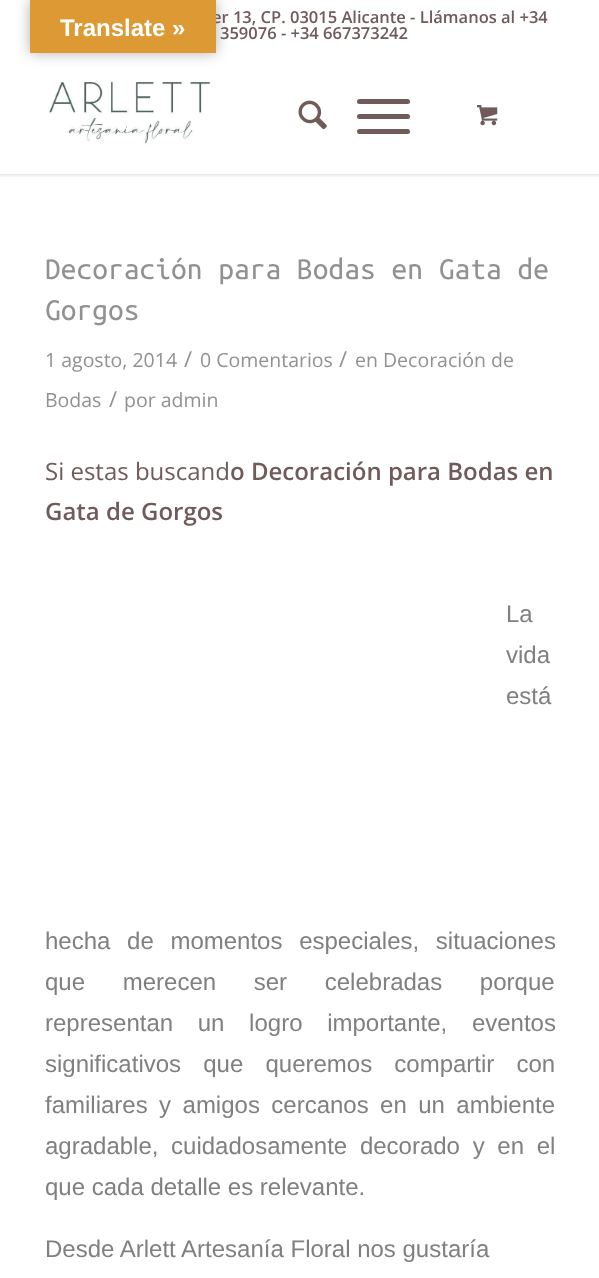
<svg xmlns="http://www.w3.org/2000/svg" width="599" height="1278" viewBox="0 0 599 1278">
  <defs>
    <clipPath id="clip1"><path d="M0 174h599v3H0z"/></clipPath>
  </defs>
  <rect width="100%" height="100%" fill="#fff"/>
  <g clip-path="url(#clip1)">
    <path d="M-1 -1h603v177H-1z" fill="#0000001a" filter="blur(1.5px)"/>
  </g>
  <image x="48" y="81" width="164" height="64" href="img/1.png"/>
  <image x="298" y="100" width="29" height="30" href="img/2.png"/>
  <rect x="357" y="114" width="53" height="5" rx="2.5" fill="#705a5a"/>
  <rect x="357" y="99" width="53" height="5" rx="2.5" fill="#705a5a"/>
  <rect x="357" y="129" width="53" height="5" rx="2.5" fill="#705a5a"/>
  <image x="477" y="105" width="21" height="21" href="img/3.png"/>
  <path d="M30 0h186v53H30z" fill="#0000004d" filter="blur(7px)"/>
  <g font-family="Open Sans" font-size="16.5" font-weight="600" fill="#705a5a">
    <text x="212" y="23">er 13, CP. 03015 Alicante - Llámanos al +34</text>
    <text x="220" y="39">359076 - +34 667373242</text>
  </g>
  <g font-family="Ubuntu Mono" font-size="31.5" fill="#919191">
    <text x="45" y="279">Decoración para Bodas en Gata de</text>
    <text x="45" y="320">Gorgos</text>
  </g>
  <text x="45" y="367" font-family="Open Sans" font-size="19.5" fill="#919191">1 agosto, 2014</text>
  <text x="184" y="367" font-family="Open Sans" font-size="22" fill="#919191">/</text>
  <text x="200" y="367" font-family="Open Sans" font-size="19.5" fill="#919191">0 Comentarios</text>
  <text x="339" y="367" font-family="Open Sans" font-size="22" fill="#919191">/</text>
  <g font-family="Open Sans" font-size="19.5" fill="#919191">
    <text x="355" y="367">en Decoración de</text>
    <text x="45" y="407">Bodas</text>
  </g>
  <text x="109" y="407" font-family="Open Sans" font-size="22" fill="#919191">/</text>
  <text x="124" y="407" font-family="Open Sans" font-size="19.5" fill="#919191">por admin</text>
  <text x="45" y="480" font-family="Open Sans" font-size="24" fill="#705a5a">Si estas buscand</text>
  <g font-family="Open Sans" font-size="24" font-weight="600" fill="#705a5a">
    <text x="230" y="480">o Decoración para Bodas en</text>
    <text x="45" y="520">Gata de Gorgos</text>
  </g>
  <g font-family="Liberation Sans" font-size="24" fill="#808080">
    <text x="506" y="622">La</text>
    <text x="506" y="663">vida</text>
    <text x="506" y="704">está</text>
    <text x="45" y="949" word-spacing="10">hecha de momentos especiales, situaciones</text>
    <text x="45" y="990" word-spacing="31">que merecen ser celebradas porque</text>
    <text x="45" y="1031" word-spacing="18">representan un logro importante, eventos</text>
    <text x="45" y="1072" word-spacing="15.5">significativos que queremos compartir con</text>
    <text x="45" y="1113" word-spacing="4.75">familiares y amigos cercanos en un ambiente</text>
    <text x="45" y="1154" word-spacing="6">agradable, cuidadosamente decorado y en el</text>
    <text x="45" y="1195">que cada detalle es relevante.</text>
    <text x="45" y="1257">Desde Arlett Artesanía Floral nos gustaría</text>
  </g>
  <path d="M30 0h186v53H30z" fill="#d93"/>
  <text x="60" y="36" font-family="Liberation Sans" font-size="24" font-weight="bold" fill="#fff">Translate »</text>
</svg>
